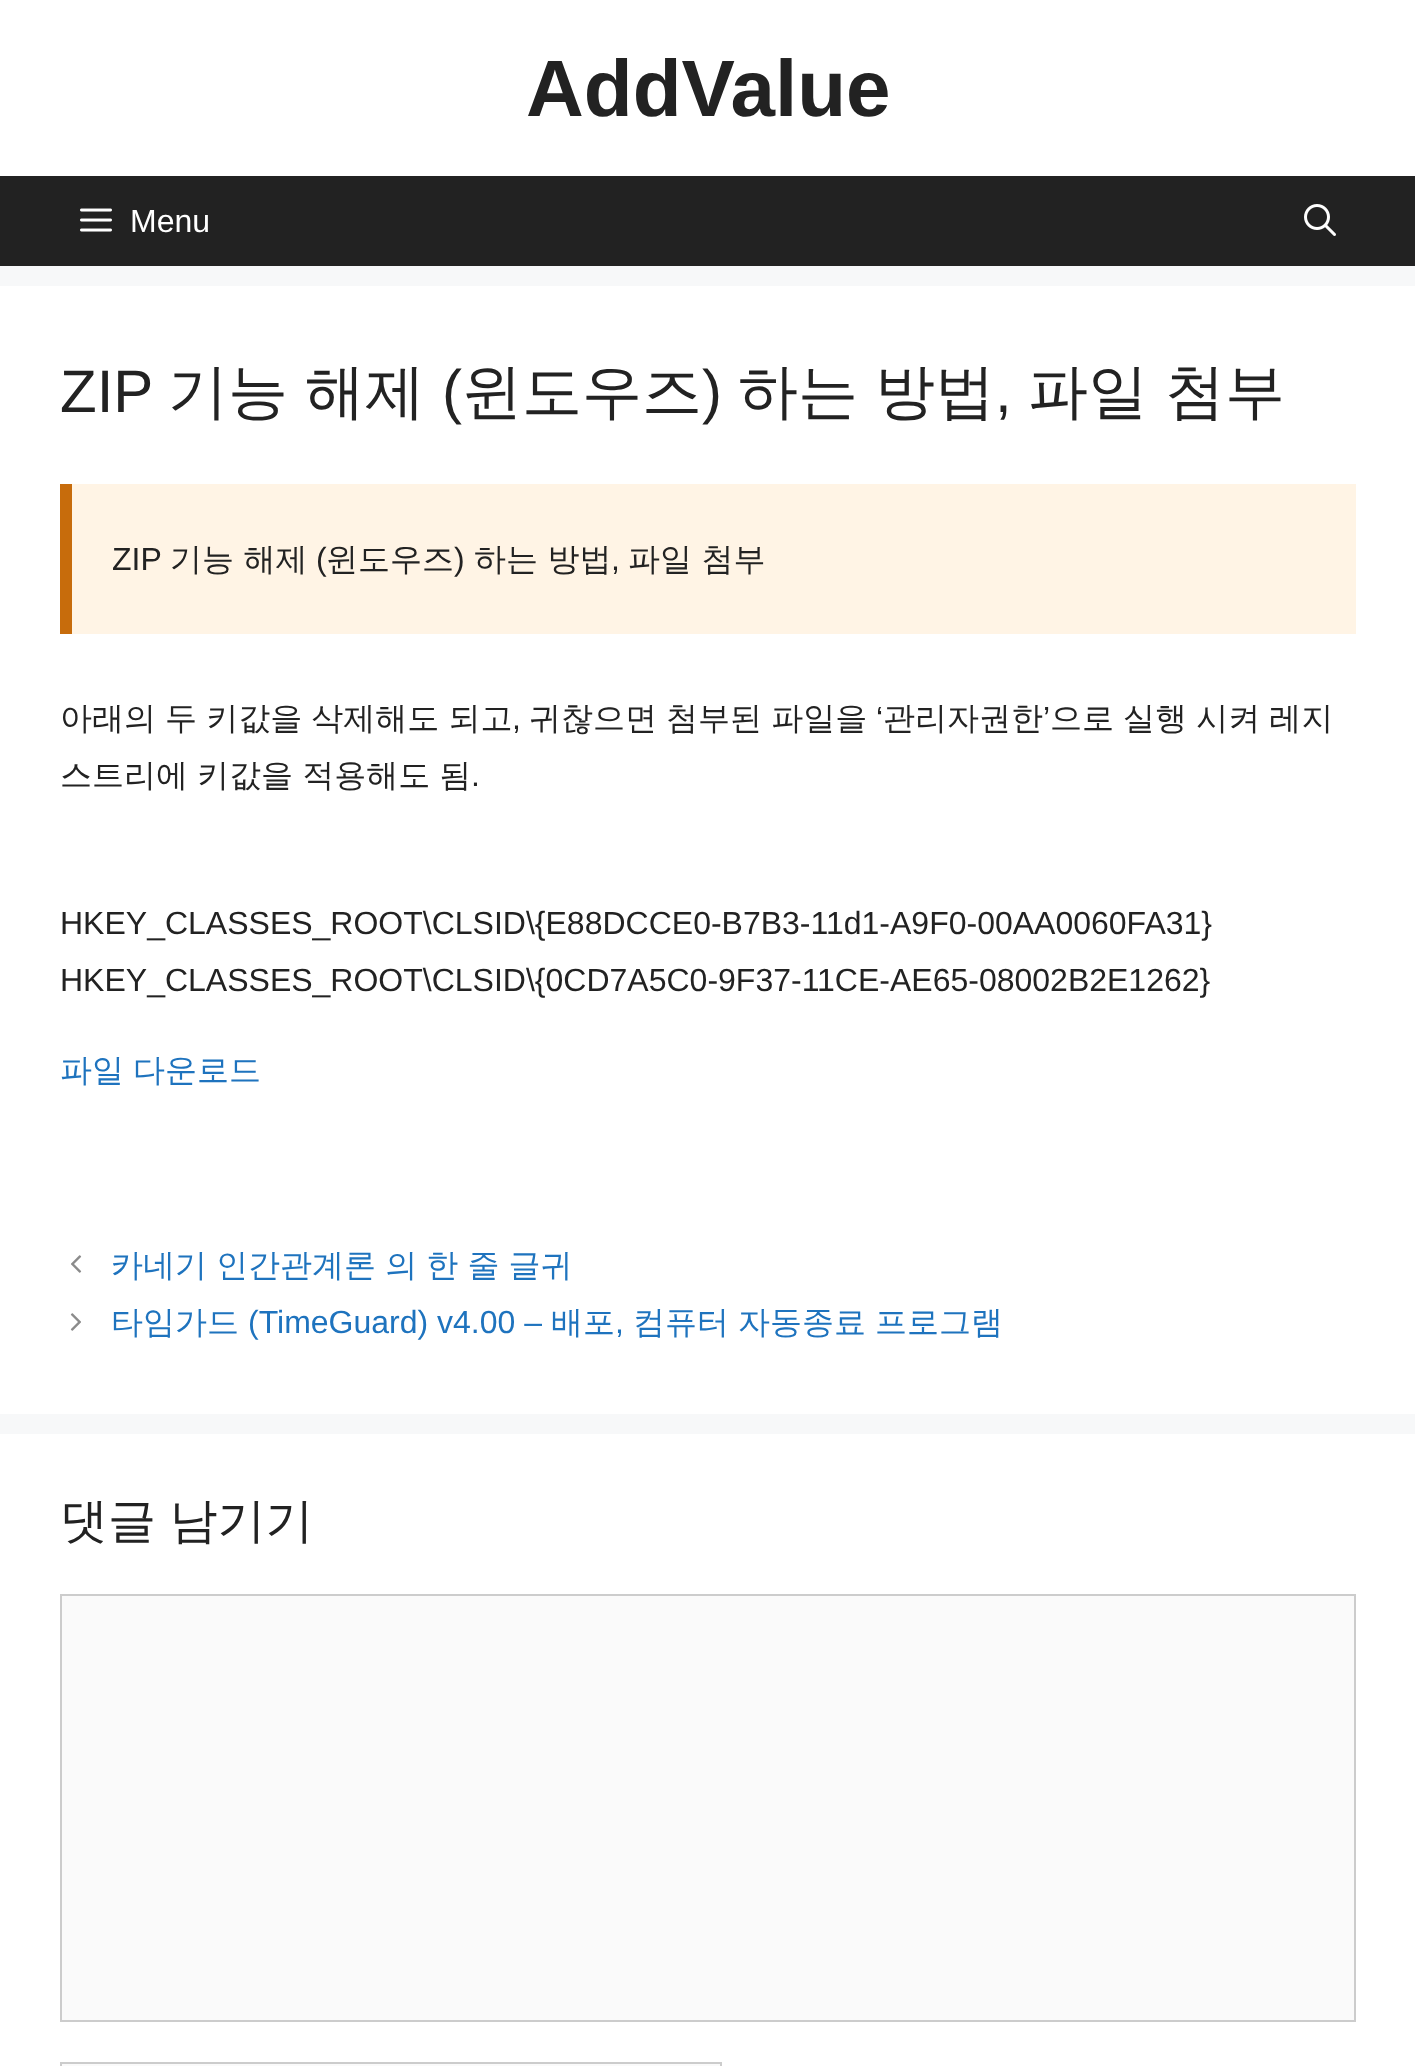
<svg xmlns="http://www.w3.org/2000/svg" width="1415" height="2066" viewBox="0 0 1415 2066">
  <rect width="100%" height="100%" fill="#f7f8f9"/>
  <path d="M0 0h1415v176H0z" fill="#fff"/>
  <path d="M0 176h1415v90H0z" fill="#222"/>
  <image x="80" y="208" width="32" height="24" href="img/1.png"/>
  <image x="1304" y="204" width="32" height="32" href="img/2.png"/>
  <path d="M0 286h1415v1128H0z" fill="#fff"/>
  <path d="M72 484h1284v150H72z" fill="#fff4e5"/>
  <path d="M60 484h12v150H60z" fill="#c76c0c"/>
  <image x="71" y="1255" width="11" height="18" href="img/3.png"/>
  <image x="70" y="1313" width="11" height="18" href="img/4.png"/>
  <path d="M0 1434h1415v632H0z" fill="#fff"/>
  <path d="M61 1595h1294v426H61z" fill="#fafafa" stroke="#ccc" stroke-width="2"/>
  <path d="M61 2063h660v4H61z" fill="#fafafa" stroke="#ccc" stroke-width="2"/>
  <text x="526" y="116" font-family="Liberation Sans" font-size="80" font-weight="bold" fill="#222">AddValue</text>
  <text x="130" y="232" font-family="Liberation Sans" font-size="32" fill="#fff">Menu</text>
  <text x="60" y="412" font-family="Liberation Sans" font-size="60" fill="#222">ZIP</text>
  <text x="168" y="412" word-spacing="-1" font-family="WenQuanYi Zen Hei" font-size="60" font-weight="500" fill="#222">기능 해제</text>
  <text x="442" y="412" font-family="Liberation Sans" font-size="60" fill="#222">(</text>
  <text x="462" y="412" font-family="WenQuanYi Zen Hei" font-size="60" font-weight="500" fill="#222">윈도우즈</text>
  <text x="702" y="412" font-family="Liberation Sans" font-size="60" fill="#222">)</text>
  <text x="738" y="412" word-spacing="-1" font-family="WenQuanYi Zen Hei" font-size="60" font-weight="500" fill="#222">하는 방법</text>
  <text x="995" y="412" font-family="Liberation Sans" font-size="60" fill="#222">,</text>
  <text x="1028" y="412" word-spacing="-1" font-family="WenQuanYi Zen Hei" font-size="60" font-weight="500" fill="#222">파일 첨부</text>
  <text x="112" y="570" font-family="Liberation Sans" font-size="32" fill="#222">ZIP</text>
  <text x="170" y="570" font-family="WenQuanYi Zen Hei" font-size="32" font-weight="500" fill="#222">기능 해제</text>
  <text x="316" y="570" font-family="Liberation Sans" font-size="32" fill="#222">(</text>
  <text x="326" y="570" font-family="WenQuanYi Zen Hei" font-size="32" font-weight="500" fill="#222">윈도우즈</text>
  <text x="454" y="570" font-family="Liberation Sans" font-size="32" fill="#222">)</text>
  <text x="474" y="570" font-family="WenQuanYi Zen Hei" font-size="32" font-weight="500" fill="#222">하는 방법</text>
  <text x="611" y="570" font-family="Liberation Sans" font-size="32" fill="#222">,</text>
  <g font-family="WenQuanYi Zen Hei" font-size="32" font-weight="500" fill="#222">
    <text x="628" y="570">파일 첨부</text>
    <text x="60" y="729" word-spacing="-0.5">아래의 두 키값을 삭제해도 되고</text>
    <text x="529" y="729" word-spacing="-0.5">귀찮으면 첨부된 파일을</text>
  </g>
  <text x="876" y="729" font-family="Liberation Sans" font-size="32" fill="#222">‘</text>
  <text x="883" y="729" font-family="WenQuanYi Zen Hei" font-size="32" font-weight="500" fill="#222">관리자권한</text>
  <text x="1043" y="729" font-family="Liberation Sans" font-size="32" fill="#222">’</text>
  <text x="1050" y="729" word-spacing="-0.5" font-family="WenQuanYi Zen Hei" font-size="32" font-weight="500" fill="#222">으로 실행 시켜 레지</text>
  <text x="512" y="729" font-family="Liberation Sans" font-size="32" fill="#222">,</text>
  <text x="60" y="786" word-spacing="-0.5" font-family="WenQuanYi Zen Hei" font-size="32" font-weight="500" fill="#222">스트리에 키값을 적용해도 됨</text>
  <g font-family="Liberation Sans" font-size="32" fill="#222">
    <text x="471" y="786">.</text>
    <text x="60" y="934">HKEY_CLASSES_ROOT\CLSID\{E88DCCE0-B7B3-11d1-A9F0-00AA0060FA31}</text>
    <text x="60" y="991">HKEY_CLASSES_ROOT\CLSID\{0CD7A5C0-9F37-11CE-AE65-08002B2E1262}</text>
  </g>
  <g font-family="WenQuanYi Zen Hei" font-size="32" font-weight="500" fill="#1e73be">
    <text x="60" y="1081" word-spacing="-0.5">파일 다운로드</text>
    <text x="111" y="1276" word-spacing="-0.5">카네기 인간관계론 의 한 줄 글귀</text>
    <text x="111" y="1333">타임가드</text>
  </g>
  <text x="248" y="1333" font-family="Liberation Sans" font-size="32" fill="#1e73be">(TimeGuard) v4.00 –</text>
  <g font-family="WenQuanYi Zen Hei" font-size="32" font-weight="500" fill="#1e73be">
    <text x="551" y="1333">배포</text>
    <text x="633" y="1333">컴퓨터</text>
    <text x="738" y="1333">자동종료</text>
    <text x="875" y="1333">프로그램</text>
  </g>
  <text x="615" y="1333" font-family="Liberation Sans" font-size="32" fill="#1e73be">,</text>
  <text x="60" y="1537" word-spacing="-1" font-family="WenQuanYi Zen Hei" font-size="48" font-weight="500" fill="#222">댓글 남기기</text>
</svg>
